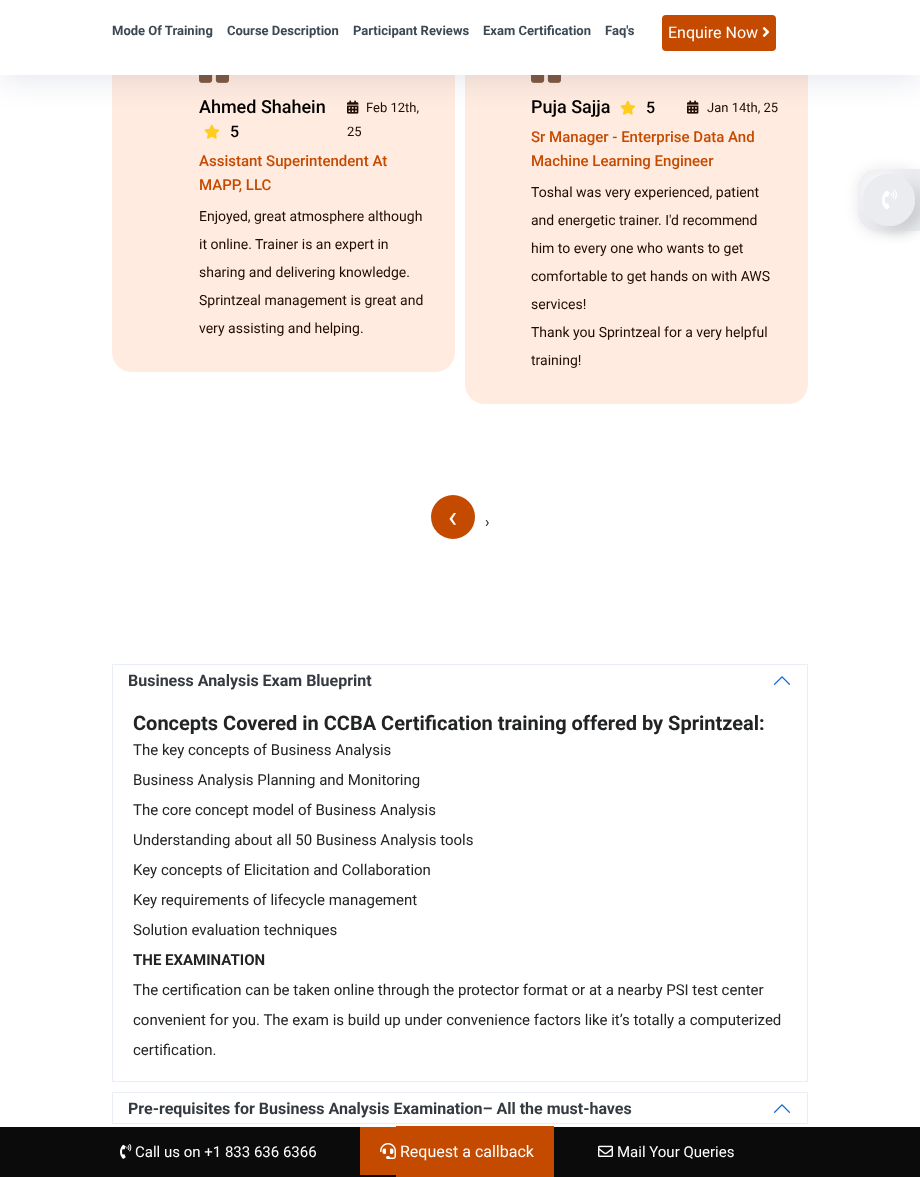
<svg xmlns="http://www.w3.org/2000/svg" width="920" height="1177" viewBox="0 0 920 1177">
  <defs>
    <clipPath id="clip1"><path d="M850 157H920V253H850ZM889 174C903.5 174 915 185.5 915 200C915 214.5 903.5 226 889 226C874.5 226 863 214.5 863 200C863 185.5 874.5 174 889 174Z" clip-rule="evenodd"/></clipPath>
    <clipPath id="clip2"><path d="M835 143H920V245H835ZM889 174C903.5 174 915 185.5 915 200C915 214.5 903.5 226 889 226C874.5 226 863 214.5 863 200C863 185.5 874.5 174 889 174Z" clip-rule="evenodd"/></clipPath>
  </defs>
  <rect width="100%" height="100%" fill="#fff"/>
  <rect x="112" y="24" width="343" height="348" rx="20" fill="#ffebdf"/>
  <image x="199" y="75" width="30" height="8" href="img/2.png"/>
  <image x="204" y="124" width="16" height="15" href="img/3.png"/>
  <image x="347" y="100" width="12" height="14" href="img/4.png"/>
  <rect x="465" y="24" width="343" height="380" rx="20" fill="#ffebdf"/>
  <image x="531" y="75" width="30" height="8" href="img/2.png"/>
  <image x="620" y="100" width="16" height="15" href="img/3.png"/>
  <image x="687" y="100" width="12" height="14" href="img/4.png"/>
  <path d="M0 5h920v75H0z" fill="#0016541a" filter="blur(15px)"/>
  <path d="M0 0h920v75H0z" fill="#fff"/>
  <rect x="662" y="15" width="114" height="36" rx="4" fill="#c44a00"/>
  <image x="762" y="27" width="8" height="10" href="img/1.png"/>
  <circle cx="453" cy="517" r="22" fill="#c44a00"/>
  <path d="M112.5 664.5h695v417H112.5z" fill="none" stroke="#e8edf7"/>
  <image x="773" y="676" width="18" height="9" href="img/5.png"/>
  <path d="M112.5 1092.5h695v31H112.5z" fill="none" stroke="#e8edf7"/>
  <image x="773" y="1104" width="18" height="9" href="img/5.png"/>
  <rect x="859" y="170" width="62" height="62" rx="20" fill="#0000001f" filter="blur(7px)"/>
  <path d="M878 169H920V231H878C867 231 858 222 858 211V189C858 178 867 169 878 169Z" fill="#ebecf0"/>
  <g clip-path="url(#clip1)">
    <rect x="872" y="179" width="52" height="52" rx="26" fill="#00000026" filter="blur(7px)"/>
  </g>
  <g clip-path="url(#clip2)">
    <rect x="860" y="168" width="52" height="52" rx="26" fill="#fdfdfdb0" filter="blur(8px)"/>
  </g>
  <circle cx="889" cy="200" r="25" fill="none" stroke="#ebecf0" stroke-width="2"/>
  <image x="882" y="189" width="15" height="21" href="img/6.png"/>
  <path d="M0 1127h920v50H0z" fill="#0b0b0b"/>
  <image x="120" y="1143" width="12" height="16" href="img/7.png"/>
  <path d="M360 1127h36v48H360z" fill="#c44a00"/>
  <path d="M396 1126h158v51H396z" fill="#c44a00"/>
  <image x="380" y="1143" width="16" height="16" href="img/8.png"/>
  <image x="598" y="1145" width="15" height="12" href="img/9.png"/>
  <g font-family="Roboto" font-size="13" font-weight="bold" fill="#3c4852">
    <text x="112" y="35">Mode Of Training</text>
    <text x="227" y="35">Course Description</text>
    <text x="353" y="35">Participant Reviews</text>
    <text x="483" y="35">Exam Certification</text>
    <text x="605" y="35">Faq's</text>
  </g>
  <text x="668" y="38" font-family="Roboto" font-size="16" fill="#fff">Enquire Now</text>
  <text x="199" y="113" font-family="Roboto" font-size="18" font-weight="500" fill="#000">Ahmed Shahein</text>
  <text x="230" y="137" font-family="Roboto" font-size="16" font-weight="500" fill="#000">5</text>
  <g font-family="Roboto" font-size="13" fill="#200d01">
    <text x="366" y="112">Feb 12th,</text>
    <text x="347" y="136">25</text>
  </g>
  <g font-family="Roboto" font-size="15" font-weight="500" fill="#c44a00">
    <text x="199" y="166">Assistant Superintendent At</text>
    <text x="199" y="190">MAPP, LLC</text>
  </g>
  <g font-family="Roboto" font-size="14" fill="#200d01">
    <text x="199" y="221">Enjoyed, great atmosphere although</text>
    <text x="199" y="249">it online. Trainer is an expert in</text>
    <text x="199" y="277">sharing and delivering knowledge.</text>
    <text x="199" y="305">Sprintzeal management is great and</text>
    <text x="199" y="333">very assisting and helping.</text>
  </g>
  <text x="531" y="113" font-family="Roboto" font-size="18" font-weight="500" fill="#000">Puja Sajja</text>
  <text x="646" y="113" font-family="Roboto" font-size="16" font-weight="500" fill="#000">5</text>
  <text x="707" y="112" font-family="Roboto" font-size="13" fill="#200d01">Jan 14th, 25</text>
  <g font-family="Roboto" font-size="15" font-weight="500" fill="#c44a00">
    <text x="531" y="142">Sr Manager - Enterprise Data And</text>
    <text x="531" y="166">Machine Learning Engineer</text>
  </g>
  <g font-family="Roboto" font-size="14" fill="#200d01">
    <text x="531" y="197">Toshal was very experienced, patient</text>
    <text x="531" y="225">and energetic trainer. I'd recommend</text>
    <text x="531" y="253">him to every one who wants to get</text>
    <text x="531" y="281">comfortable to get hands on with AWS</text>
    <text x="531" y="309">services!</text>
    <text x="531" y="337">Thank you Sprintzeal for a very helpful</text>
    <text x="531" y="365">training!</text>
  </g>
  <text x="448" y="527" font-family="Roboto" font-size="30" fill="#fff">‹</text>
  <text x="485" y="527" font-family="Roboto" font-size="15" fill="#212324">›</text>
  <text x="128" y="686" font-family="Roboto" font-size="16" font-weight="bold" fill="#343a40">Business Analysis Exam Blueprint</text>
  <text x="133" y="730" font-family="Roboto" font-size="20" font-weight="bold" fill="#212324">Concepts Covered in CCBA Certification training offered by Sprintzeal:</text>
  <g font-family="Roboto" font-size="15" fill="#212324">
    <text x="133" y="755">The key concepts of Business Analysis</text>
    <text x="133" y="785">Business Analysis Planning and Monitoring</text>
    <text x="133" y="815">The core concept model of Business Analysis</text>
    <text x="133" y="845">Understanding about all 50 Business Analysis tools</text>
    <text x="133" y="875">Key concepts of Elicitation and Collaboration</text>
    <text x="133" y="905">Key requirements of lifecycle management</text>
    <text x="133" y="935">Solution evaluation techniques</text>
  </g>
  <text x="133" y="965" font-family="Roboto" font-size="15" font-weight="bold" fill="#212324">THE EXAMINATION</text>
  <g font-family="Roboto" font-size="15" fill="#212324">
    <text x="133" y="995">The certification can be taken online through the protector format or at a nearby PSI test center</text>
    <text x="133" y="1025">convenient for you. The exam is build up under convenience factors like it’s totally a computerized</text>
    <text x="133" y="1055">certification.</text>
  </g>
  <text x="128" y="1114" font-family="Roboto" font-size="16" font-weight="bold" fill="#343a40">Pre-requisites for Business Analysis Examination– All the must-haves</text>
  <text x="135" y="1157" font-family="Roboto" font-size="15" fill="#fff">Call us on +1 833 636 6366</text>
  <text x="400" y="1157" font-family="Roboto" font-size="16" fill="#fff">Request a callback</text>
  <text x="617" y="1157" font-family="Roboto" font-size="15" fill="#fff">Mail Your Queries</text>
</svg>
